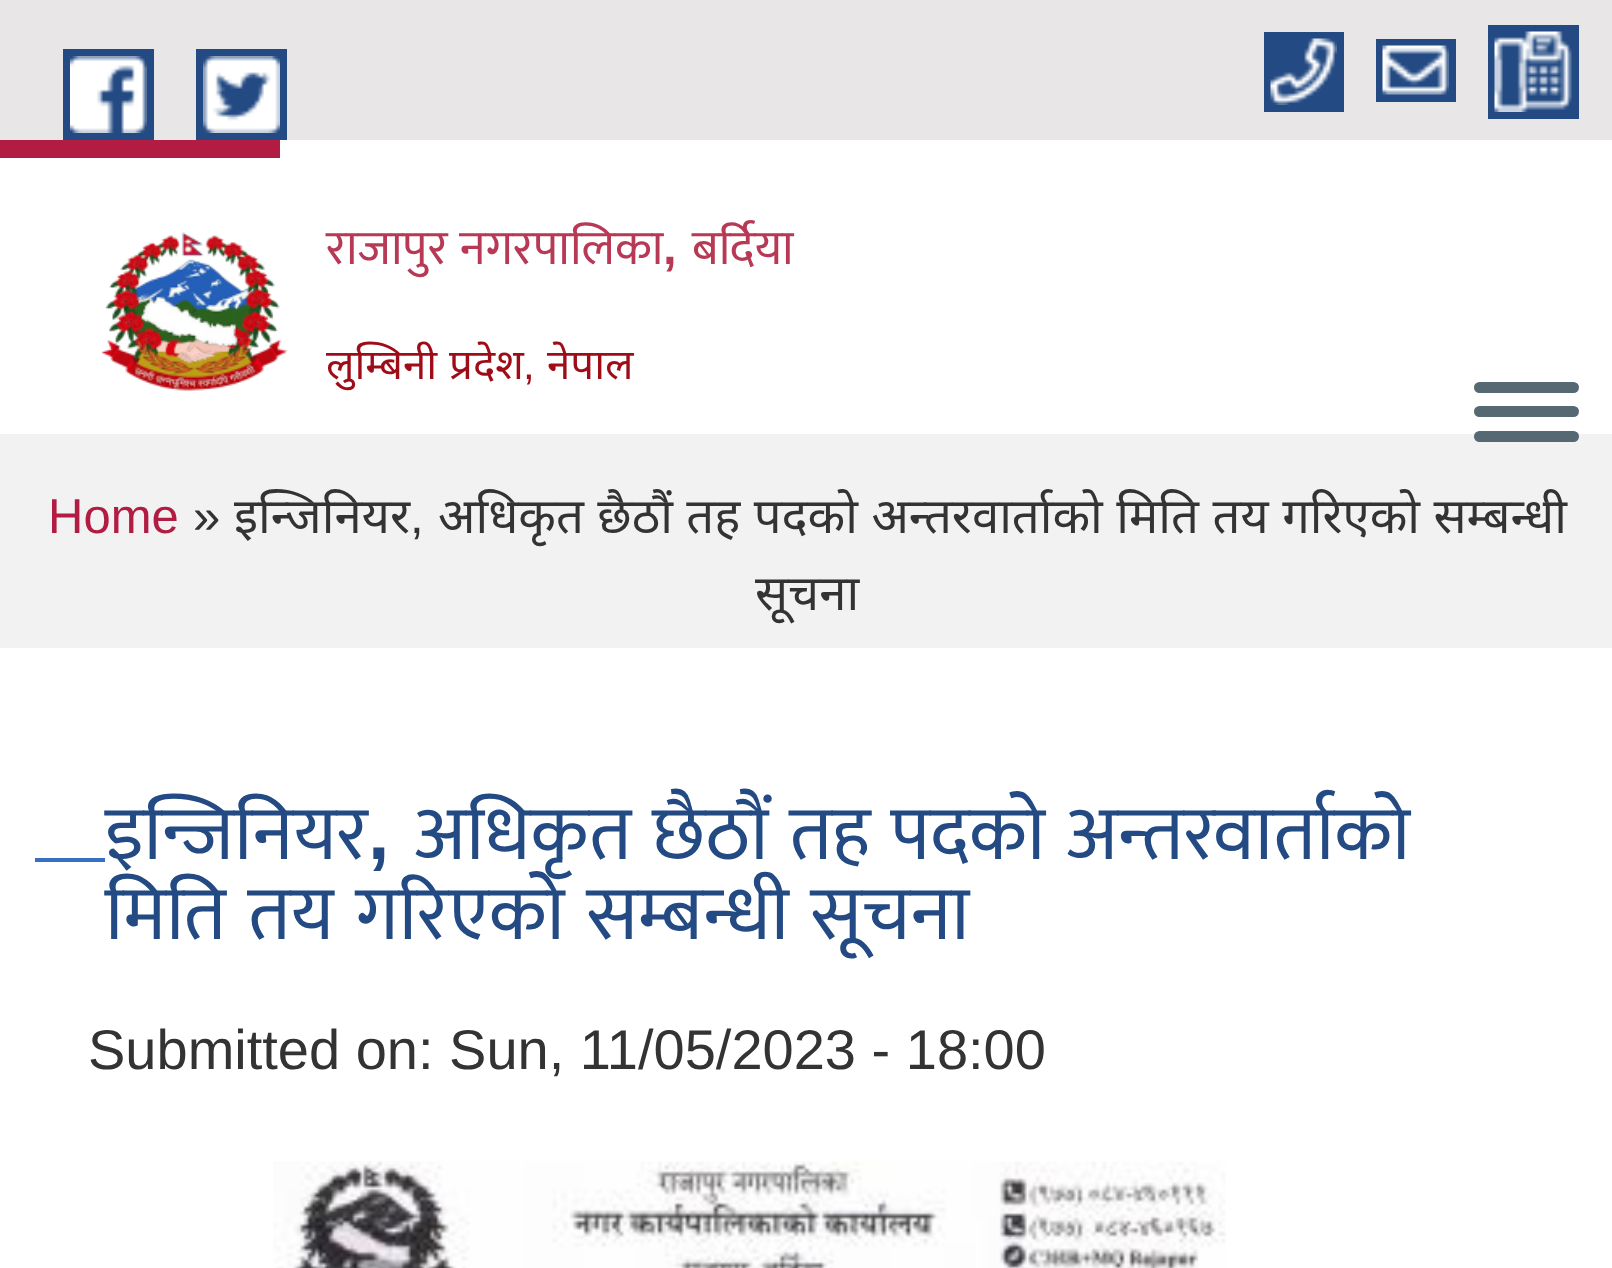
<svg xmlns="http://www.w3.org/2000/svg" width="1612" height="1268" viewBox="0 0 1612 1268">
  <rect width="100%" height="100%" fill="#fff"/>
  <path d="M0 0h1612v140H0z" fill="#e8e6e6"/>
  <path d="M63 49h91v91H63z" fill="#234a83"/>
  <path d="M196 49h91v91H196z" fill="#234a83"/>
  <image x="70" y="56" width="77" height="77" href="img/1.png"/>
  <image x="203" y="56" width="77" height="77" href="img/2.png"/>
  <path d="M1488 25h91v94H1488z" fill="#234a83"/>
  <path d="M1264 32h80v80H1264z" fill="#234a83"/>
  <image x="1494" y="31" width="78" height="81" href="img/3.png"/>
  <image x="1270" y="38" width="67" height="67" href="img/4.png"/>
  <path d="M1376 39h80v63H1376z" fill="#234a83"/>
  <image x="1382" y="45" width="67" height="50" href="img/5.png"/>
  <path d="M0 140h280v18H0z" fill="#b21c42"/>
  <image x="101" y="232" width="187" height="159" href="img/6.png"/>
  <rect x="1474" y="382" width="105" height="11" rx="5.5" fill="#566973"/>
  <rect x="1474" y="406" width="105" height="11" rx="5.5" fill="#566973"/>
  <path d="M0 434h1612v214H0z" fill="#f2f2f2"/>
  <rect x="1474" y="431" width="105" height="11" rx="5.5" fill="#566973"/>
  <path d="M35 858h70v4H35z" fill="#376fc2"/>
  <image x="273" y="1161" width="953" height="107" href="img/7.png"/>
  <text x="326" y="264" word-spacing="1" font-family="Mukta" font-size="49" fill="#b83955">राजापुर नगरपालिका</text>
  <text x="663" y="264" font-family="Liberation Sans" font-size="49" font-weight="bold" fill="#b83955">,</text>
  <text x="692" y="264" font-family="Mukta" font-size="49" fill="#b83955">बर्दिया</text>
  <text x="326" y="379" word-spacing="1" font-family="Noto Sans" font-size="42" fill="#9e0c18">लुम्बिनी प्रदेश</text>
  <text x="523" y="379" font-family="Liberation Sans" font-size="42" fill="#9e0c18">,</text>
  <text x="547" y="379" font-family="Noto Sans" font-size="42" fill="#9e0c18">नेपाल</text>
  <text x="48" y="533" font-family="Liberation Sans" font-size="49" fill="#b21c42">Home</text>
  <text x="193" y="533" font-family="Liberation Sans" font-size="49" fill="#333">»</text>
  <g font-family="Noto Sans" font-size="49" fill="#333">
    <text x="234" y="533">इन्जिनियर</text>
    <text x="438" y="533" word-spacing="0.75">अधिकृत छैठौं तह पदको अन्तरवार्ताको मिति तय गरिएको सम्बन्धी</text>
  </g>
  <text x="410" y="533" font-family="Liberation Sans" font-size="49" fill="#333">,</text>
  <text x="755" y="610" font-family="Noto Sans" font-size="49" fill="#333">सूचना</text>
  <text x="105" y="859" font-family="Mukta" font-size="77" fill="#234a83">इन्जिनियर</text>
  <text x="368" y="859" font-family="Liberation Sans" font-size="77" font-weight="bold" fill="#234a83">,</text>
  <g font-family="Mukta" font-size="77" fill="#234a83">
    <text x="414" y="859" word-spacing="3.5">अधिकृत छैठौं तह पदको अन्तरवार्ताको</text>
    <text x="105" y="939" word-spacing="4.5">मिति तय गरिएको सम्बन्धी सूचना</text>
  </g>
  <text x="88" y="1069" font-family="Liberation Sans" font-size="56" fill="#333">Submitted on: Sun, 11/05/2023 - 18:00</text>
</svg>
